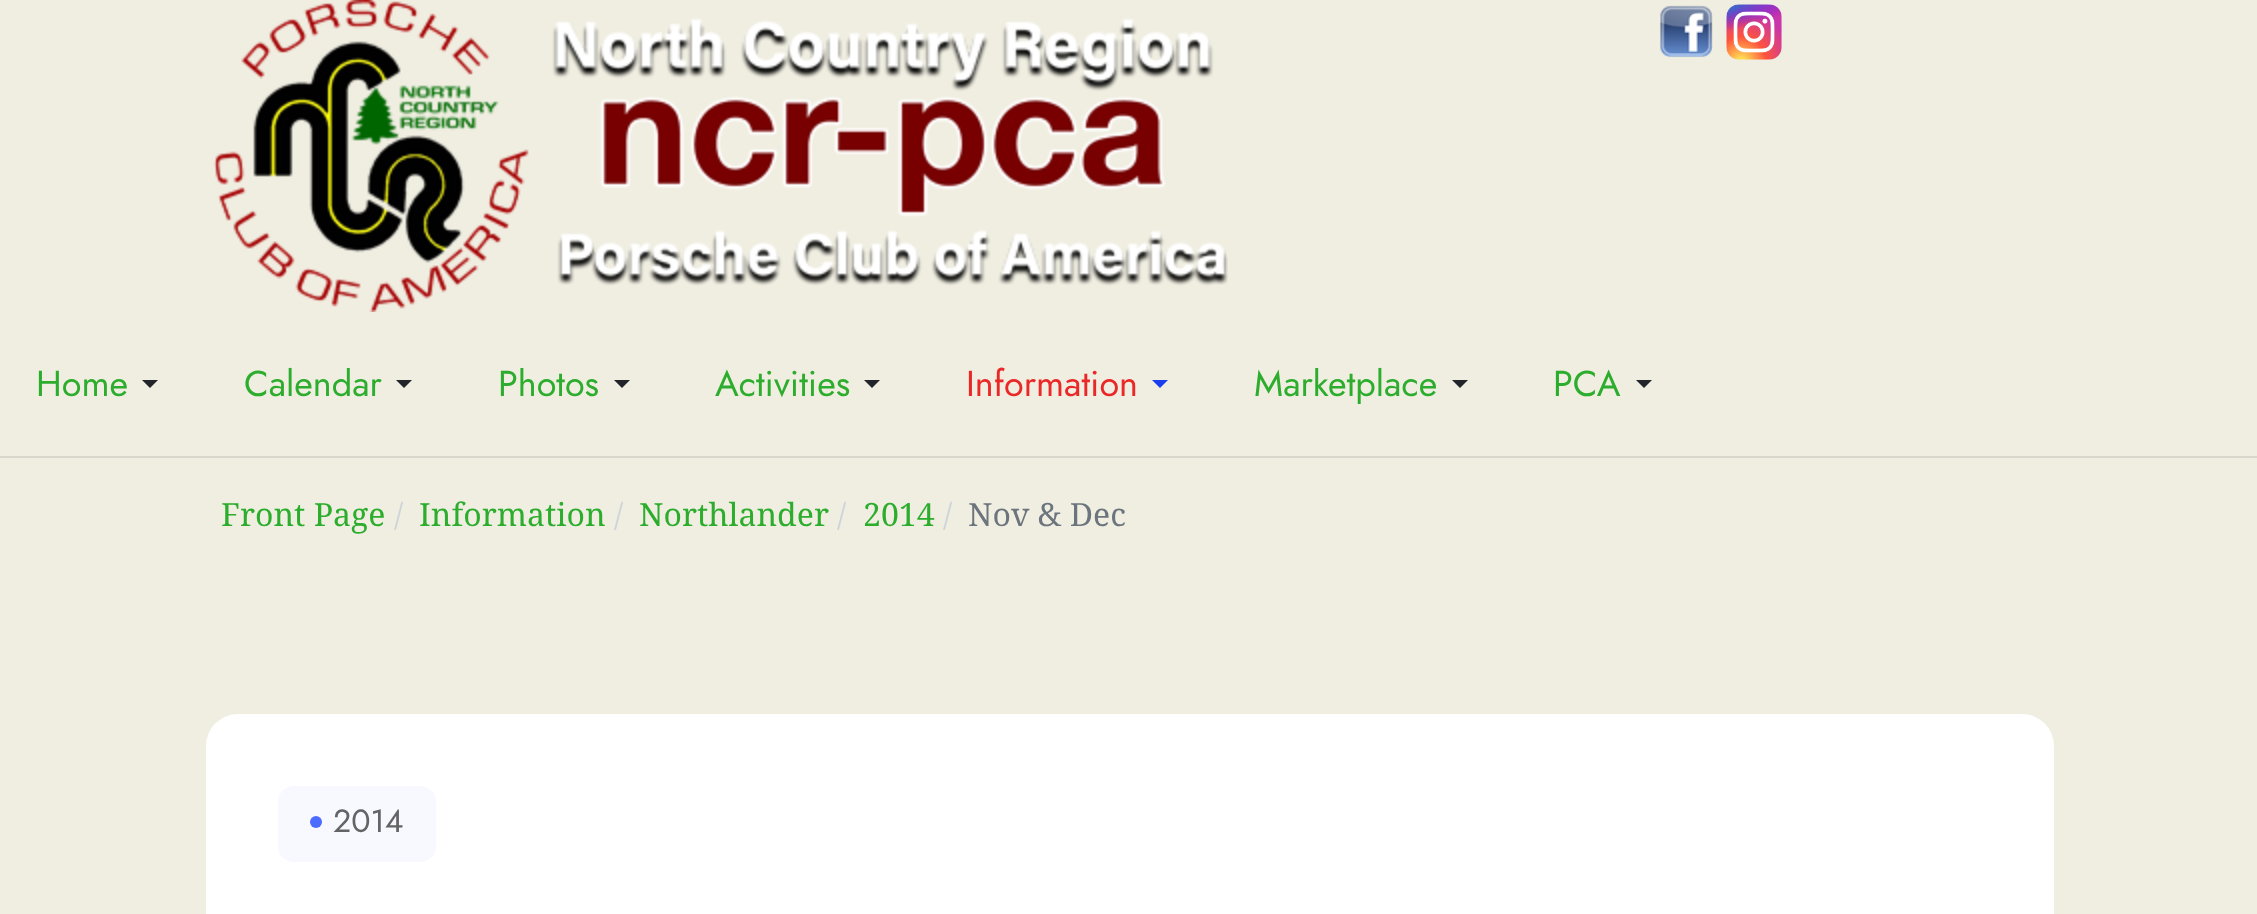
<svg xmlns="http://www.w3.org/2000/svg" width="2257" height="914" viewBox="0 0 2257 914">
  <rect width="100%" height="100%" fill="#f0eee1"/>
  <image x="213" y="0" width="1015" height="312" href="img/1.png"/>
  <image x="1660" y="5" width="53" height="53" href="img/2.png"/>
  <image x="1726" y="4" width="56" height="56" href="img/3.png"/>
  <path d="M142 380H158L150 388Z" fill="#212529"/>
  <path d="M396 380H412L404 388Z" fill="#212529"/>
  <path d="M614 380H630L622 388Z" fill="#212529"/>
  <path d="M864 380H880L872 388Z" fill="#212529"/>
  <path d="M1152 380H1168L1160 388Z" fill="#1a3eed"/>
  <path d="M1452 380H1468L1460 388Z" fill="#212529"/>
  <path d="M1636 380H1652L1644 388Z" fill="#212529"/>
  <path d="M0 456h2257v2H0z" fill="#d8d6cb"/>
  <rect x="206" y="714" width="1848" height="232" rx="32" fill="#fff"/>
  <rect x="278" y="786" width="158" height="76" rx="16" fill="#f8f8ff"/>
  <circle cx="316" cy="822" r="6" fill="#4d6bff"/>
  <g font-family="Jost" font-size="36" fill="#2dad2d">
    <text x="36" y="396">Home</text>
    <text x="244" y="396">Calendar</text>
    <text x="498" y="396">Photos</text>
    <text x="715" y="396">Activities</text>
  </g>
  <text x="966" y="396" font-family="Jost" font-size="36" fill="#eb2828">Information</text>
  <g font-family="Jost" font-size="36" fill="#2dad2d">
    <text x="1254" y="396">Marketplace</text>
    <text x="1553" y="396">PCA</text>
  </g>
  <text x="221" y="526" font-family="Noto Serif" font-size="32" fill="#2dad2d">Front Page</text>
  <text x="394" y="526" font-family="Noto Serif" font-size="32" fill="#ced4da">/</text>
  <text x="419" y="526" font-family="Noto Serif" font-size="32" fill="#2dad2d">Information</text>
  <text x="614" y="526" font-family="Noto Serif" font-size="32" fill="#ced4da">/</text>
  <text x="639" y="526" font-family="Noto Serif" font-size="32" fill="#2dad2d">Northlander</text>
  <text x="837" y="526" font-family="Noto Serif" font-size="32" fill="#ced4da">/</text>
  <text x="863" y="526" font-family="Noto Serif" font-size="32" fill="#2dad2d">2014</text>
  <text x="943" y="526" font-family="Noto Serif" font-size="32" fill="#ced4da">/</text>
  <text x="968" y="526" font-family="Noto Serif" font-size="32" fill="#6c757d">Nov &amp; Dec</text>
  <text x="333" y="832" font-family="Jost" font-size="32" fill="#646466">2014</text>
</svg>
